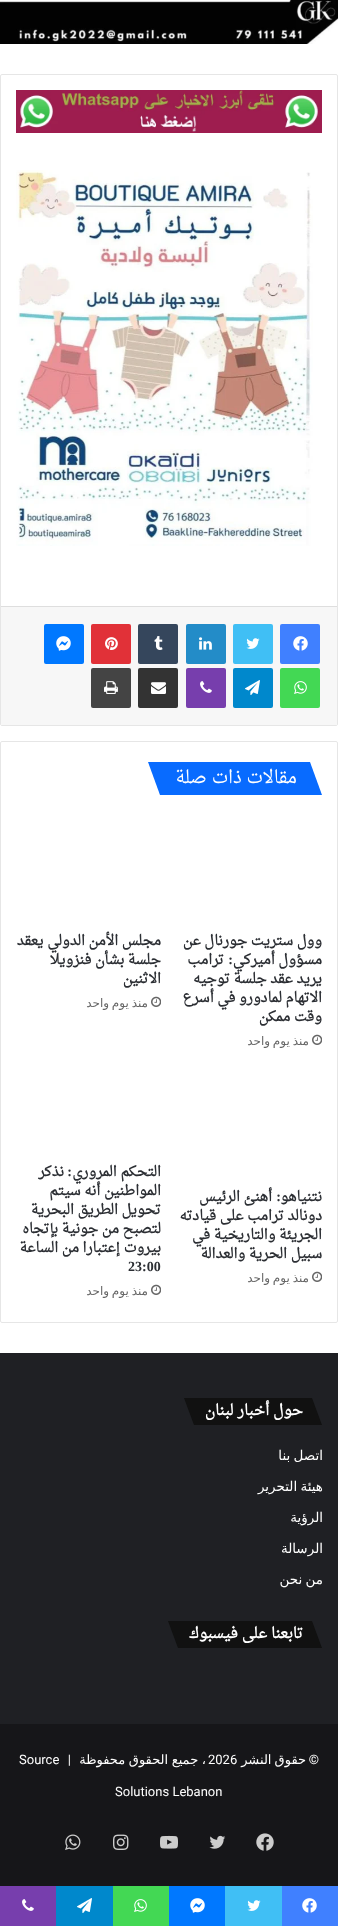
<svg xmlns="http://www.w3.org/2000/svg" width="338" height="1926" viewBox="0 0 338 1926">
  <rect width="100%" height="100%" fill="#fff"/>
  <image x="0" y="0" width="338" height="44" href="img/1.png"/>
  <rect x="0.5" y="74.5" width="337" height="651" rx="1.5" fill="none" stroke="#e6e6e6"/>
  <image x="16" y="90" width="306" height="43" href="img/2.png"/>
  <image x="16" y="170" width="297" height="376" href="img/3.png"/>
  <path d="M1 607h336v118H1z" fill="#f7f7f7"/>
  <path d="M1 606h336v1H1z" fill="#dedede"/>
  <rect x="280" y="624" width="40" height="40" rx="2" fill="#4080ff"/>
  <image x="293" y="636" width="15" height="15" href="img/4.png"/>
  <rect x="233" y="624" width="40" height="40" rx="2" fill="#40bff5"/>
  <image x="246" y="638" width="14" height="11" href="img/5.png"/>
  <rect x="186" y="624" width="40" height="40" rx="2" fill="#238cc8"/>
  <image x="199" y="637" width="13" height="13" href="img/6.png"/>
  <rect x="138" y="624" width="40" height="40" rx="2" fill="#35465c"/>
  <image x="154" y="636" width="9" height="14" href="img/7.png"/>
  <rect x="91" y="624" width="40" height="40" rx="2" fill="#e13138"/>
  <image x="105" y="637" width="13" height="13" href="img/8.png"/>
  <rect x="44" y="624" width="40" height="40" rx="2" fill="#0078ff"/>
  <image x="56" y="636" width="15" height="15" href="img/9.png"/>
  <rect x="280" y="668" width="40" height="40" rx="2" fill="#43d854"/>
  <image x="294" y="681" width="13" height="13" href="img/10.png"/>
  <rect x="233" y="668" width="40" height="40" rx="2" fill="#08c"/>
  <image x="245" y="680" width="15" height="15" href="img/11.png"/>
  <rect x="186" y="668" width="40" height="40" rx="2" fill="#773ead"/>
  <image x="200" y="681" width="12" height="12" href="img/12.png"/>
  <rect x="138" y="668" width="40" height="40" rx="2" fill="#333"/>
  <image x="151" y="682" width="15" height="12" href="img/13.png"/>
  <rect x="91" y="668" width="40" height="40" rx="2" fill="#444"/>
  <image x="104" y="681" width="14" height="13" href="img/14.png"/>
  <rect x="0.5" y="741.5" width="337" height="581" rx="1.5" fill="none" stroke="#e6e6e6"/>
  <path d="M148 762H310L322 795H160Z" fill="#086bff"/>
  <image x="312" y="1034" width="10" height="11" href="img/15.png"/>
  <image x="151" y="996" width="10" height="11" href="img/15.png"/>
  <image x="312" y="1271" width="10" height="11" href="img/15.png"/>
  <image x="151" y="1284" width="10" height="11" href="img/15.png"/>
  <path d="M0 1353h338v371H0z" fill="#1f2024"/>
  <path d="M184 1398H312L322 1425H194Z" fill="#111"/>
  <path d="M168 1621H312L322 1648H178Z" fill="#111"/>
  <path d="M0 1724h338v162H0z" fill="#161619"/>
  <image x="256" y="1833" width="18" height="18" href="img/16.png"/>
  <image x="209" y="1835" width="17" height="14" href="img/17.png"/>
  <image x="160" y="1835" width="18" height="14" href="img/18.png"/>
  <image x="113" y="1834" width="16" height="16" href="img/19.png"/>
  <image x="65" y="1834" width="16" height="16" href="img/20.png"/>
  <path d="M282 1886h56v40H282z" fill="#4080ff"/>
  <image x="302" y="1898" width="15" height="15" href="img/4.png"/>
  <path d="M225 1886h57v40H225z" fill="#40bff5"/>
  <image x="247" y="1900" width="14" height="11" href="img/5.png"/>
  <path d="M169 1886h56v40H169z" fill="#0078ff"/>
  <image x="190" y="1898" width="15" height="15" href="img/9.png"/>
  <path d="M113 1886h56v40H113z" fill="#43d854"/>
  <image x="134" y="1899" width="13" height="13" href="img/10.png"/>
  <path d="M56 1886h57v40H56z" fill="#08c"/>
  <image x="77" y="1898" width="15" height="15" href="img/11.png"/>
  <path d="M0 1886h56v40H0z" fill="#773ead"/>
  <image x="22" y="1899" width="12" height="12" href="img/12.png"/>
  <text x="297" y="783" font-family="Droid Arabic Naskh" font-size="18" direction="rtl" fill="#fff">مقالات ذات صلة</text>
  <g font-family="Droid Arabic Naskh" font-size="14" font-weight="bold" direction="rtl" fill="#2c2f34">
    <text x="322" y="945">وول ستريت جورنال عن</text>
    <text x="322" y="964">مسؤول أميركي</text>
  </g>
  <text x="233" y="964" font-family="Liberation Serif" font-size="14" font-weight="bold" direction="rtl" fill="#2c2f34">:</text>
  <g font-family="Droid Arabic Naskh" font-size="14" font-weight="bold" direction="rtl" fill="#2c2f34">
    <text x="224" y="964">ترامب</text>
    <text x="322" y="983">يريد عقد جلسة توجيه</text>
    <text x="322" y="1002">الاتهام لمادورو في أسرع</text>
    <text x="322" y="1021">وقت ممكن</text>
  </g>
  <text x="309" y="1045" word-spacing="-1" font-family="DejaVu Sans" font-size="12" direction="rtl" fill="#666">منذ يوم واحد</text>
  <g font-family="Droid Arabic Naskh" font-size="14" font-weight="bold" direction="rtl" fill="#2c2f34">
    <text x="161" y="945">مجلس الأمن الدولي يعقد</text>
    <text x="161" y="964">جلسة بشأن فنزويلا</text>
    <text x="161" y="983">الاثنين</text>
  </g>
  <text x="148" y="1007" word-spacing="-1" font-family="DejaVu Sans" font-size="12" direction="rtl" fill="#666">منذ يوم واحد</text>
  <text x="322" y="1201" font-family="Droid Arabic Naskh" font-size="14" font-weight="bold" direction="rtl" fill="#2c2f34">نتنياهو</text>
  <text x="281" y="1201" font-family="Liberation Serif" font-size="14" font-weight="bold" direction="rtl" fill="#2c2f34">:</text>
  <g font-family="Droid Arabic Naskh" font-size="14" font-weight="bold" direction="rtl" fill="#2c2f34">
    <text x="272" y="1201">أهنئ الرئيس</text>
    <text x="322" y="1220">دونالد ترامب على قيادته</text>
    <text x="322" y="1239">الجريئة والتاريخية في</text>
    <text x="322" y="1258">سبيل الحرية والعدالة</text>
  </g>
  <text x="309" y="1282" word-spacing="-1" font-family="DejaVu Sans" font-size="12" direction="rtl" fill="#666">منذ يوم واحد</text>
  <text x="161" y="1176" font-family="Droid Arabic Naskh" font-size="14" font-weight="bold" direction="rtl" fill="#2c2f34">التحكم المروري</text>
  <text x="72" y="1176" font-family="Liberation Serif" font-size="14" font-weight="bold" direction="rtl" fill="#2c2f34">:</text>
  <g font-family="Droid Arabic Naskh" font-size="14" font-weight="bold" direction="rtl" fill="#2c2f34">
    <text x="64" y="1176">نذكر</text>
    <text x="161" y="1195">المواطنين أنه سيتم</text>
    <text x="161" y="1214">تحويل الطريق البحرية</text>
    <text x="161" y="1233">لتصبح من جونية بإتجاه</text>
    <text x="161" y="1252">بيروت إعتبارا من الساعة</text>
  </g>
  <text x="128" y="1271" font-family="Liberation Serif" font-size="14" font-weight="bold" fill="#2c2f34">23:00</text>
  <text x="148" y="1295" word-spacing="-1" font-family="DejaVu Sans" font-size="12" direction="rtl" fill="#666">منذ يوم واحد</text>
  <text x="303" y="1415" font-family="Droid Arabic Naskh" font-size="15" font-weight="bold" direction="rtl" fill="#fff">حول أخبار لبنان</text>
  <g font-family="DejaVu Sans" font-size="13.5" direction="rtl" fill="#fff">
    <text x="323" y="1460" word-spacing="-1">اتصل بنا</text>
    <text x="323" y="1491" word-spacing="-1">هيئة التحرير</text>
    <text x="323" y="1522">الرؤية</text>
    <text x="323" y="1553">الرسالة</text>
    <text x="323" y="1584" word-spacing="-1">من نحن</text>
  </g>
  <text x="303" y="1638" font-family="Droid Arabic Naskh" font-size="15" font-weight="bold" direction="rtl" fill="#fff">تابعنا على فيسبوك</text>
  <text x="319" y="1764" font-family="Roboto" font-size="13" direction="rtl" fill="#fff">©</text>
  <text x="306" y="1764" word-spacing="-1" font-family="DejaVu Sans" font-size="13" direction="rtl" fill="#fff">حقوق النشر</text>
  <text x="208" y="1764" font-family="Roboto" font-size="13" fill="#fff">2026</text>
  <text x="206" y="1764" word-spacing="-0.5" font-family="DejaVu Sans" font-size="13" direction="rtl" fill="#fff">، جميع الحقوق محفوظة</text>
  <text x="71" y="1764" font-family="Roboto" font-size="13" direction="rtl" fill="#fff">|</text>
  <g font-family="Roboto" font-size="13" fill="#fff">
    <text x="19" y="1764">Source</text>
    <text x="115" y="1796">Solutions Lebanon</text>
  </g>
</svg>
